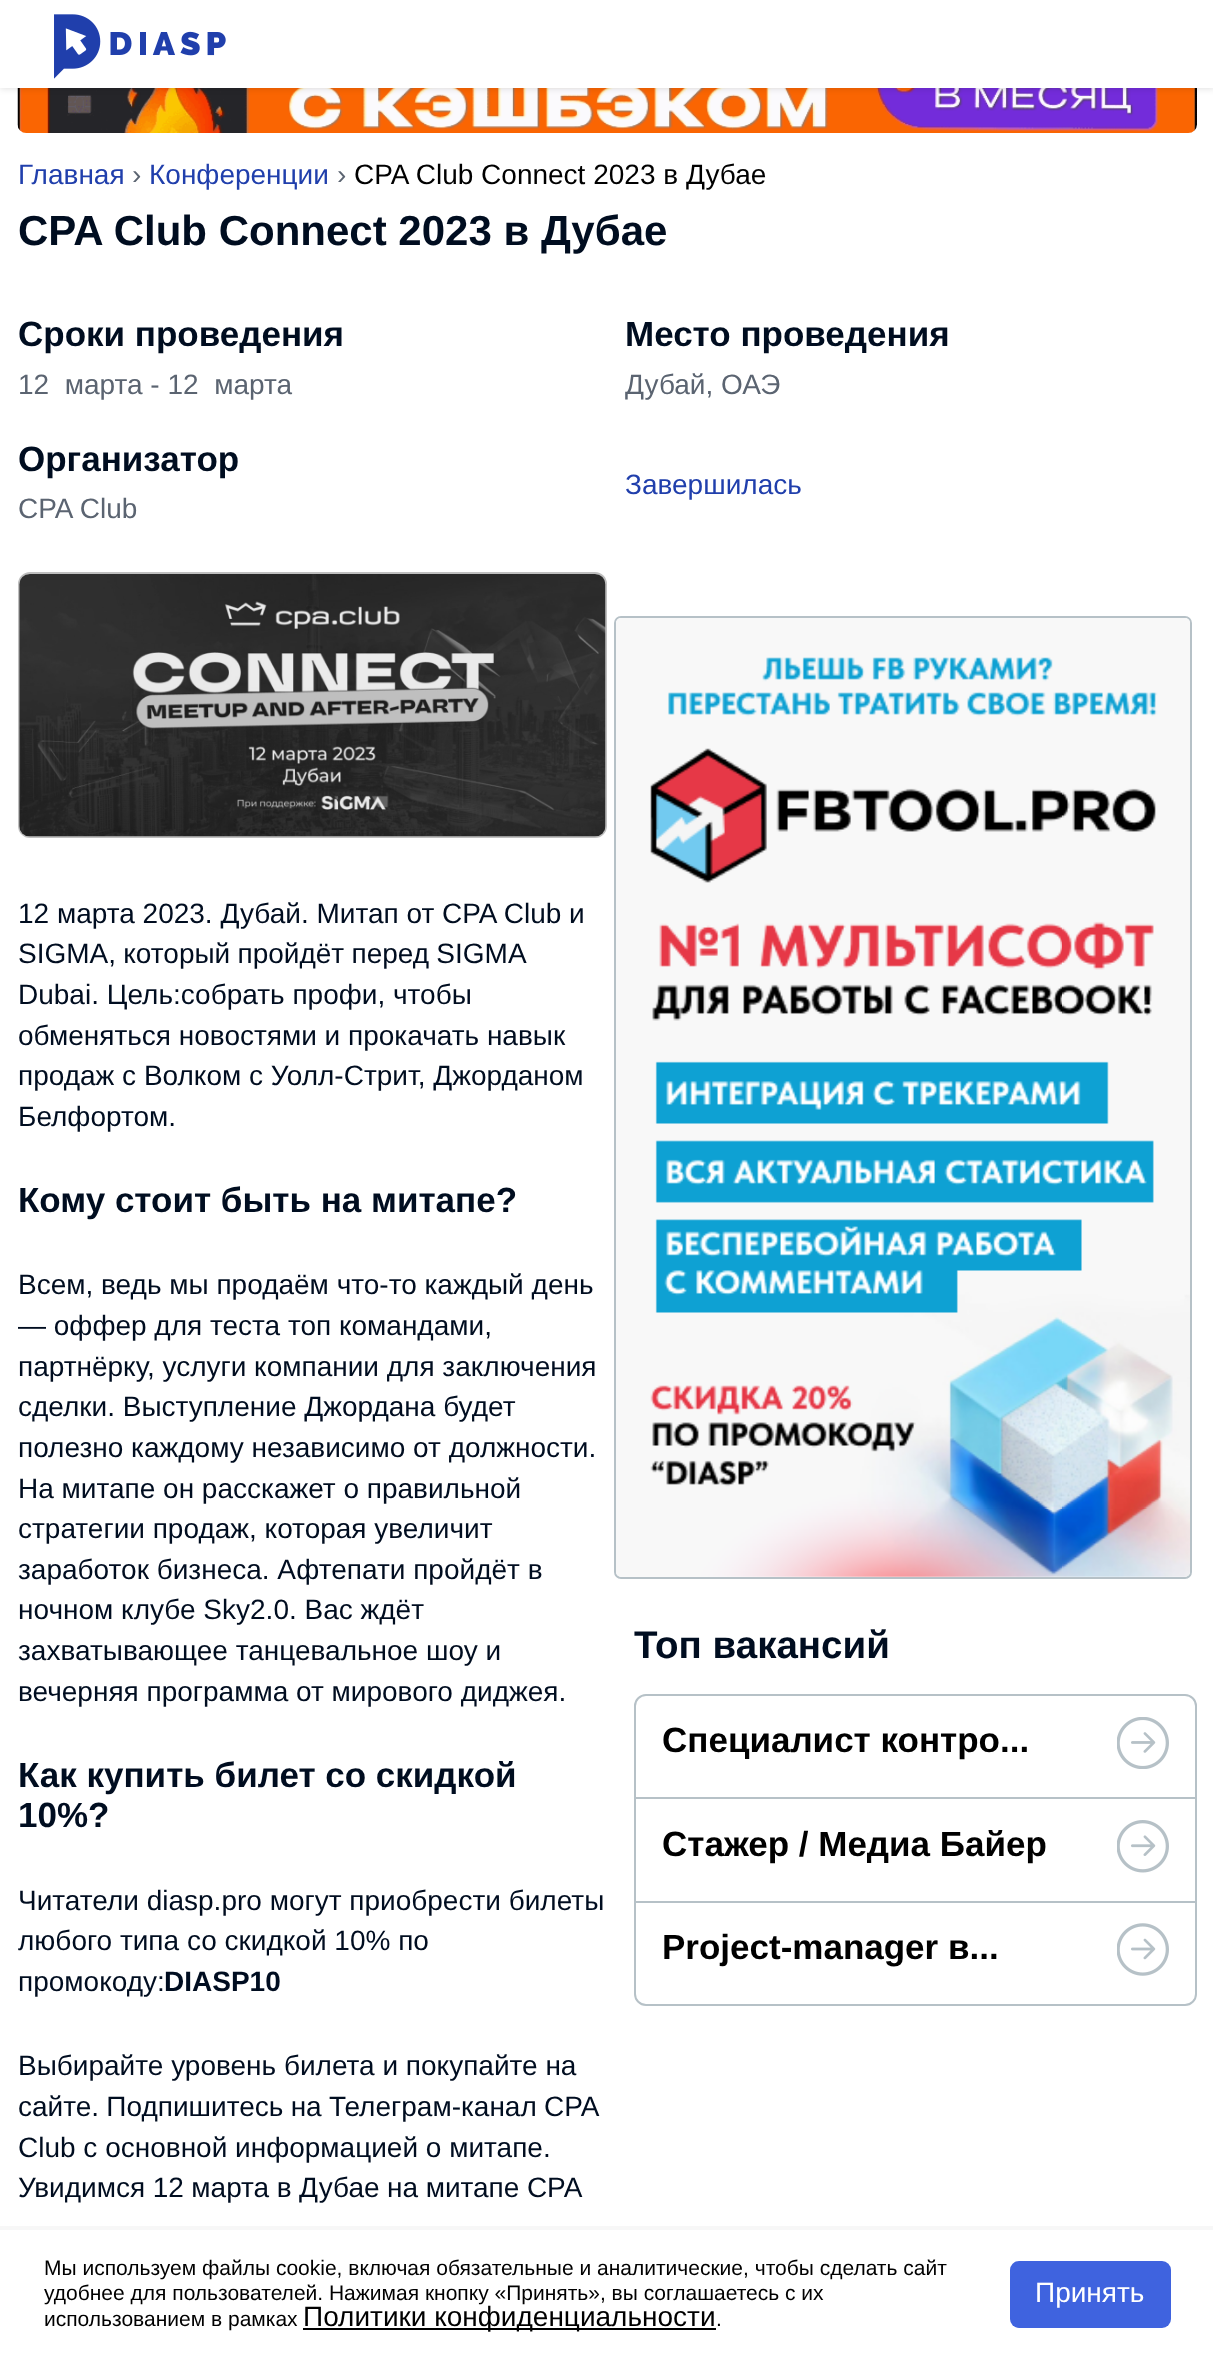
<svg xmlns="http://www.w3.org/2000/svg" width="1213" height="2357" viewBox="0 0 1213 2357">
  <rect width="100%" height="100%" fill="#fff"/>
  <image x="17" y="88" width="1180" height="45" href="img/2.png"/>
  <path d="M0 0h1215v88H0z" fill="#00000026" filter="blur(3.5px)"/>
  <path d="M0 0h1213v88H0z" fill="#fff"/>
  <image x="54" y="14" width="172" height="65" href="img/1.png"/>
  <rect x="19" y="573" width="587" height="264" rx="11" fill="none" stroke="#bfbfbf" stroke-width="2"/>
  <image x="19" y="574" width="587" height="263" href="img/3.png"/>
  <rect x="615" y="617" width="576" height="961" rx="6" fill="none" stroke="#b6c1c7" stroke-width="2"/>
  <image x="616" y="618" width="574" height="959" href="img/4.png"/>
  <rect x="635" y="1695" width="561" height="310" rx="11" fill="none" stroke="#b6c1c7" stroke-width="2"/>
  <path d="M635 1797h560v2H635z" fill="#b6c1c7"/>
  <image x="1117" y="1717" width="52" height="52" href="img/5.png"/>
  <path d="M635 1901h560v2H635z" fill="#b6c1c7"/>
  <image x="1117" y="1820" width="52" height="53" href="img/6.png"/>
  <image x="1117" y="1923" width="52" height="53" href="img/7.png"/>
  <path d="M0 2226h1213v4H0z" fill="#f7f7f7"/>
  <path d="M303 2328h413v2H303z" fill="#000"/>
  <rect x="1010" y="2261" width="161" height="67" rx="9" fill="#3f63df"/>
  <text x="18" y="184" font-family="Liberation Sans" font-size="28" fill="#203fac">Главная</text>
  <text x="132" y="184" font-family="Liberation Sans" font-size="28" fill="#5b6471">›</text>
  <text x="149" y="184" font-family="Liberation Sans" font-size="28" fill="#203fac">Конференции</text>
  <text x="337" y="184" font-family="Liberation Sans" font-size="28" fill="#5b6471">›</text>
  <text x="354" y="184" font-family="Liberation Sans" font-size="28" fill="#000">CPA Club Connect 2023 в Дубае</text>
  <text x="18" y="245" font-family="Liberation Sans" font-size="42" font-weight="bold" fill="#000d20">CPA Club Connect 2023 в Дубае</text>
  <text x="18" y="346" font-family="Liberation Sans" font-size="35" font-weight="bold" fill="#000d20">Сроки проведения</text>
  <text x="18" y="394" font-family="Liberation Sans" font-size="28" fill="#5b6471" xml:space="preserve">12  марта - 12  марта</text>
  <text x="625" y="346" font-family="Liberation Sans" font-size="35" font-weight="bold" fill="#000d20">Место проведения</text>
  <text x="625" y="394" font-family="Liberation Sans" font-size="28" fill="#5b6471">Дубай, ОАЭ</text>
  <text x="18" y="471" font-family="Liberation Sans" font-size="35" font-weight="bold" fill="#000d20">Организатор</text>
  <text x="18" y="518" font-family="Liberation Sans" font-size="28" fill="#5b6471">CPA Club</text>
  <text x="625" y="494" font-family="Liberation Sans" font-size="28" fill="#203fac">Завершилась</text>
  <g font-family="Liberation Sans" font-size="28" fill="#000d20">
    <text x="18" y="923">12 марта 2023. Дубай. Митап от CPA Club и</text>
    <text x="18" y="963" word-spacing="-0.5">SIGMA, который пройдёт перед SIGMA</text>
    <text x="18" y="1004">Dubai. Цель:собрать профи, чтобы</text>
    <text x="18" y="1045">обменяться новостями и прокачать навык</text>
    <text x="18" y="1085">продаж с Волком с Уолл-Стрит, Джорданом</text>
    <text x="18" y="1126">Белфортом.</text>
  </g>
  <text x="18" y="1212" font-family="Liberation Sans" font-size="35" font-weight="bold" fill="#000d20">Кому стоит быть на митапе?</text>
  <g font-family="Liberation Sans" font-size="28" fill="#000d20">
    <text x="18" y="1294">Всем, ведь мы продаём что-то каждый день</text>
    <text x="18" y="1335">— оффер для теста топ командами,</text>
    <text x="18" y="1376">партнёрку, услуги компании для заключения</text>
    <text x="18" y="1416">сделки. Выступление Джордана будет</text>
    <text x="18" y="1457">полезно каждому независимо от должности.</text>
    <text x="18" y="1498">На митапе он расскажет о правильной</text>
    <text x="18" y="1538">стратегии продаж, которая увеличит</text>
    <text x="18" y="1579">заработок бизнеса. Афтепати пройдёт в</text>
    <text x="18" y="1619">ночном клубе Sky2.0. Вас ждёт</text>
    <text x="18" y="1660">захватывающее танцевальное шоу и</text>
    <text x="18" y="1701">вечерняя программа от мирового диджея.</text>
  </g>
  <g font-family="Liberation Sans" font-size="35" font-weight="bold" fill="#000d20">
    <text x="18" y="1787">Как купить билет со скидкой</text>
    <text x="18" y="1827">10%?</text>
  </g>
  <g font-family="Liberation Sans" font-size="28" fill="#000d20">
    <text x="18" y="1910">Читатели diasp.pro могут приобрести билеты</text>
    <text x="18" y="1950">любого типа со скидкой 10% по</text>
    <text x="18" y="1991">промокоду:</text>
  </g>
  <text x="164" y="1991" font-family="Liberation Sans" font-size="28" font-weight="bold" fill="#000d20">DIASP10</text>
  <g font-family="Liberation Sans" font-size="28" fill="#000d20">
    <text x="18" y="2075">Выбирайте уровень билета и покупайте на</text>
    <text x="18" y="2116" word-spacing="-0.5">сайте. Подпишитесь на Телеграм-канал CPA</text>
    <text x="18" y="2157">Club с основной информацией о митапе.</text>
    <text x="18" y="2197" word-spacing="-0.25">Увидимся 12 марта в Дубае на митапе CPA</text>
  </g>
  <text x="634" y="1658" font-family="Liberation Sans" font-size="38.5" font-weight="bold" fill="#000d20">Топ вакансий</text>
  <g font-family="Liberation Sans" font-size="35" font-weight="bold" fill="#000">
    <text x="662" y="1752">Специалист контро...</text>
    <text x="662" y="1856">Стажер / Медиа Байер</text>
    <text x="662" y="1959">Project-manager в...</text>
  </g>
  <g font-family="Liberation Sans" font-size="21" fill="#000">
    <text x="44" y="2275">Мы используем файлы cookie, включая обязательные и аналитические, чтобы сделать сайт</text>
    <text x="44" y="2300">удобнее для пользователей. Нажимая кнопку «Принять», вы соглашаетесь с их</text>
    <text x="44" y="2326">использованием в рамках</text>
  </g>
  <text x="303" y="2326" font-family="Liberation Sans" font-size="28" fill="#000">Политики конфиденциальности</text>
  <text x="716" y="2326" font-family="Liberation Sans" font-size="21" fill="#000">.</text>
  <text x="1035" y="2302" font-family="Liberation Sans" font-size="28" fill="#fff">Принять</text>
</svg>
